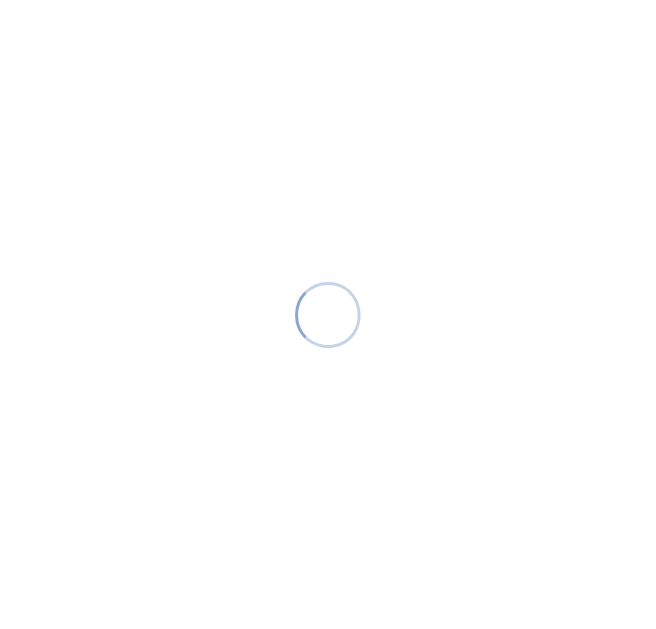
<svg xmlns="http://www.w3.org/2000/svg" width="656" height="629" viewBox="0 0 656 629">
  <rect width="100%" height="100%" fill="#fff"/>
  <path d="M305.5 292.5C311.5 287 319.5 283.5 328 283.5C365.5 283.5 371 338.5 334 346C324 348 313 344.5 305.5 337.5" fill="none" stroke="#c5d3e8" stroke-width="3"/>
  <path d="M305.5 337.5C293.5 325 293.5 305 305.5 292.5" fill="none" stroke="#8aa6d1" stroke-width="3"/>
</svg>
